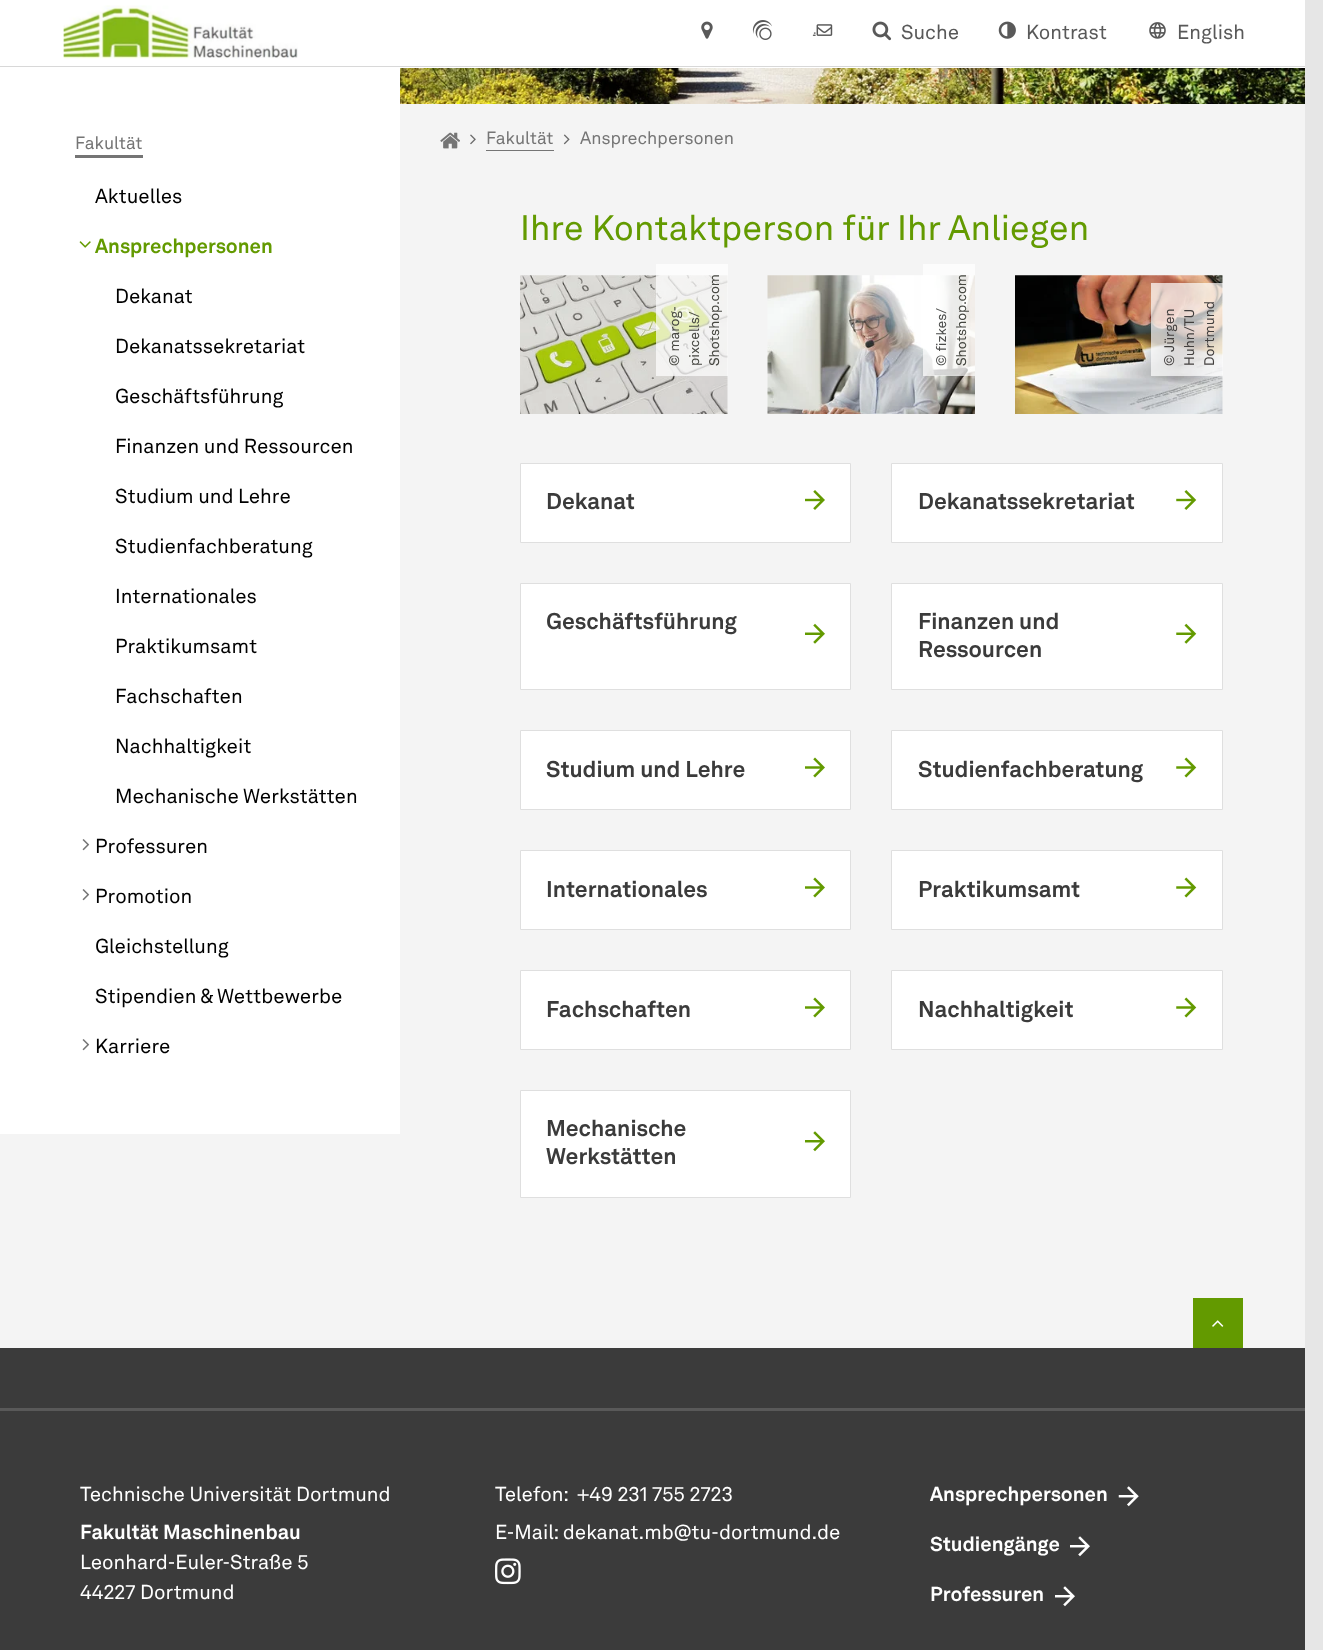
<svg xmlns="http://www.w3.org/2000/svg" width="1323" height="1650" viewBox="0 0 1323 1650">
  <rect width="100%" height="100%" fill="#e6e6e6"/>
  <path d="M0 0h1305v68H0z" fill="#fff"/>
  <path d="M0 66h1305v1H0z" fill="#d8d8d8"/>
  <image x="63" y="5" width="235" height="54" href="img/1.png"/>
  <image x="701" y="21" width="12" height="18" href="img/2.png"/>
  <image x="752" y="20" width="20" height="20" href="img/3.png"/>
  <image x="812" y="24" width="21" height="12" href="img/4.png"/>
  <image x="872" y="21" width="20" height="20" href="img/5.png"/>
  <image x="998" y="21" width="18" height="18" href="img/6.png"/>
  <image x="1149" y="22" width="17" height="17" href="img/7.png"/>
  <image x="400" y="68" width="905" height="36" href="img/8.png"/>
  <path d="M0 104h1305v1244H0z" fill="#f4f4f4"/>
  <path d="M0 68h400v1066H0z" fill="#fff"/>
  <path d="M75 155h68v3H75z" fill="#757575"/>
  <image x="79" y="241" width="12" height="7" href="img/9.png"/>
  <image x="82" y="839" width="8" height="12" href="img/10.png"/>
  <image x="82" y="889" width="8" height="12" href="img/10.png"/>
  <image x="82" y="1039" width="8" height="12" href="img/10.png"/>
  <image x="440" y="132" width="20" height="17" href="img/11.png"/>
  <image x="470" y="134" width="6" height="11" href="img/12.png"/>
  <path d="M486 150h68v1H486z" fill="#757575"/>
  <image x="563" y="134" width="7" height="11" href="img/13.png"/>
  <image x="520" y="275" width="208" height="139" href="img/14.png"/>
  <path d="M656 264h72v112H656z" fill="#ffffffb3"/>
  <image x="767" y="275" width="208" height="139" href="img/15.png"/>
  <path d="M923 264h52v112H923z" fill="#ffffffb3"/>
  <image x="1015" y="275" width="208" height="139" href="img/16.png"/>
  <path d="M1151 283h72v93H1151z" fill="#ffffffb3"/>
  <path d="M520.5 463.5h330v79H520.5z" fill="#fff" stroke="#dfdfdf"/>
  <image x="805" y="490" width="20" height="20" href="img/17.png"/>
  <path d="M891.5 463.5h331v79H891.5z" fill="#fff" stroke="#dfdfdf"/>
  <image x="1176" y="490" width="21" height="20" href="img/18.png"/>
  <path d="M520.5 583.5h330v106H520.5z" fill="#fff" stroke="#dfdfdf"/>
  <image x="805" y="623" width="20" height="21" href="img/19.png"/>
  <path d="M891.5 583.5h331v106H891.5z" fill="#fff" stroke="#dfdfdf"/>
  <image x="1176" y="623" width="21" height="21" href="img/20.png"/>
  <path d="M520.5 730.5h330v79H520.5z" fill="#fff" stroke="#dfdfdf"/>
  <image x="805" y="757" width="20" height="21" href="img/21.png"/>
  <path d="M891.5 730.5h331v79H891.5z" fill="#fff" stroke="#dfdfdf"/>
  <image x="1176" y="757" width="21" height="21" href="img/22.png"/>
  <path d="M520.5 850.5h330v79H520.5z" fill="#fff" stroke="#dfdfdf"/>
  <image x="805" y="877" width="20" height="21" href="img/21.png"/>
  <path d="M891.5 850.5h331v79H891.5z" fill="#fff" stroke="#dfdfdf"/>
  <image x="1176" y="877" width="21" height="21" href="img/22.png"/>
  <path d="M520.5 970.5h330v79H520.5z" fill="#fff" stroke="#dfdfdf"/>
  <image x="805" y="997" width="20" height="21" href="img/21.png"/>
  <path d="M891.5 970.5h331v79H891.5z" fill="#fff" stroke="#dfdfdf"/>
  <image x="1176" y="997" width="21" height="21" href="img/22.png"/>
  <path d="M520.5 1090.5h330v107H520.5z" fill="#fff" stroke="#dfdfdf"/>
  <image x="805" y="1131" width="20" height="21" href="img/23.png"/>
  <path d="M1193 1298h50v50H1193z" fill="#639a00"/>
  <image x="1212" y="1320" width="12" height="7" href="img/24.png"/>
  <path d="M0 1348h1305v302H0z" fill="#3b3b3b"/>
  <path d="M0 1408h1305v3H0z" fill="#595959"/>
  <image x="495" y="1558" width="26" height="27" href="img/25.png"/>
  <image x="1118" y="1486" width="21" height="21" href="img/26.png"/>
  <image x="1070" y="1536" width="20" height="21" href="img/27.png"/>
  <image x="1055" y="1586" width="20" height="21" href="img/27.png"/>
  <g font-family="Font" font-size="20" fill="#595959">
    <text x="901" y="39">Suche</text>
    <text x="1026" y="39">Kontrast</text>
    <text x="1177" y="39">English</text>
  </g>
  <text x="75" y="149" font-family="Font" font-size="17.5" fill="#757575">Fakultät</text>
  <text x="95" y="203" font-family="Font" font-size="20" fill="#000">Aktuelles</text>
  <text x="95" y="253" font-family="Font" font-size="20" font-weight="bold" fill="#639a00">Ansprechpersonen</text>
  <g font-family="Font" font-size="20" fill="#000">
    <text x="115" y="303">Dekanat</text>
    <text x="115" y="353">Dekanatssekretariat</text>
    <text x="115" y="403">Geschäftsführung</text>
    <text x="115" y="453">Finanzen und Ressourcen</text>
    <text x="115" y="503">Studium und Lehre</text>
    <text x="115" y="553">Studienfachberatung</text>
    <text x="115" y="603">Internationales</text>
    <text x="115" y="653">Praktikumsamt</text>
    <text x="115" y="703">Fachschaften</text>
    <text x="115" y="753">Nachhaltigkeit</text>
    <text x="115" y="803">Mechanische Werkstätten</text>
    <text x="95" y="853">Professuren</text>
    <text x="95" y="903">Promotion</text>
    <text x="95" y="953">Gleichstellung</text>
    <text x="95" y="1003">Stipendien &amp; Wettbewerbe</text>
    <text x="95" y="1053">Karriere</text>
  </g>
  <g font-family="Font" font-size="17.5" fill="#757575">
    <text x="486" y="144">Fakultät</text>
    <text x="580" y="144">Ansprechpersonen</text>
  </g>
  <text x="520" y="240" font-family="Font" font-size="35" fill="#639a00">Ihre Kontaktperson für Ihr Anliegen</text>
  <g font-family="Font" font-size="13.75" fill="#474842">
    <text x="679" y="366" transform="rotate(-90 679 366)">© marog-</text>
    <text x="699" y="366" transform="rotate(-90 699 366)">pixcells/</text>
    <text x="719" y="366" transform="rotate(-90 719 366)">Shotshop.com</text>
  </g>
  <text x="946" y="366" transform="rotate(-90 946 366)" font-family="Font" font-size="13.75" fill="#4b4c4b">© fizkes/</text>
  <text x="966" y="366" transform="rotate(-90 966 366)" font-family="Font" font-size="13.75" fill="#474842">Shotshop.com</text>
  <g font-family="Font" font-size="13.75" fill="#423f3e">
    <text x="1174" y="366" transform="rotate(-90 1174 366)">© Jürgen</text>
    <text x="1194" y="366" transform="rotate(-90 1194 366)">Huhn/TU</text>
    <text x="1214" y="366" transform="rotate(-90 1214 366)">Dortmund</text>
  </g>
  <g font-family="Font" font-size="22.5" font-weight="bold" fill="#3b3b3b">
    <text x="546" y="509">Dekanat</text>
    <text x="918" y="509">Dekanatssekretariat</text>
    <text x="546" y="629">Geschäftsführung</text>
    <text x="918" y="629">Finanzen und</text>
    <text x="918" y="657">Ressourcen</text>
    <text x="546" y="777">Studium und Lehre</text>
    <text x="918" y="777">Studienfachberatung</text>
    <text x="546" y="897">Internationales</text>
    <text x="918" y="897">Praktikumsamt</text>
    <text x="546" y="1017">Fachschaften</text>
    <text x="918" y="1017">Nachhaltigkeit</text>
    <text x="546" y="1136">Mechanische</text>
    <text x="546" y="1164">Werkstätten</text>
  </g>
  <text x="80" y="1501" font-family="Font" font-size="20" fill="#fff">Technische Universität Dortmund</text>
  <text x="80" y="1539" font-family="Font" font-size="20" font-weight="bold" fill="#fff">Fakultät Maschinenbau</text>
  <g font-family="Font" font-size="20" fill="#fff">
    <text x="80" y="1569">Leonhard-Euler-Straße 5</text>
    <text x="80" y="1599">44227 Dortmund</text>
    <text x="495" y="1501">Telefon:</text>
    <text x="577" y="1501">+49 231 755 2723</text>
    <text x="495" y="1539">E-Mail: dekanat.mb@tu-dortmund.</text>
    <text x="817" y="1539">de</text>
  </g>
  <g font-family="Font" font-size="20" font-weight="bold" fill="#fff">
    <text x="930" y="1501">Ansprechpersonen</text>
    <text x="930" y="1551">Studiengänge</text>
    <text x="930" y="1601">Professuren</text>
  </g>
</svg>
